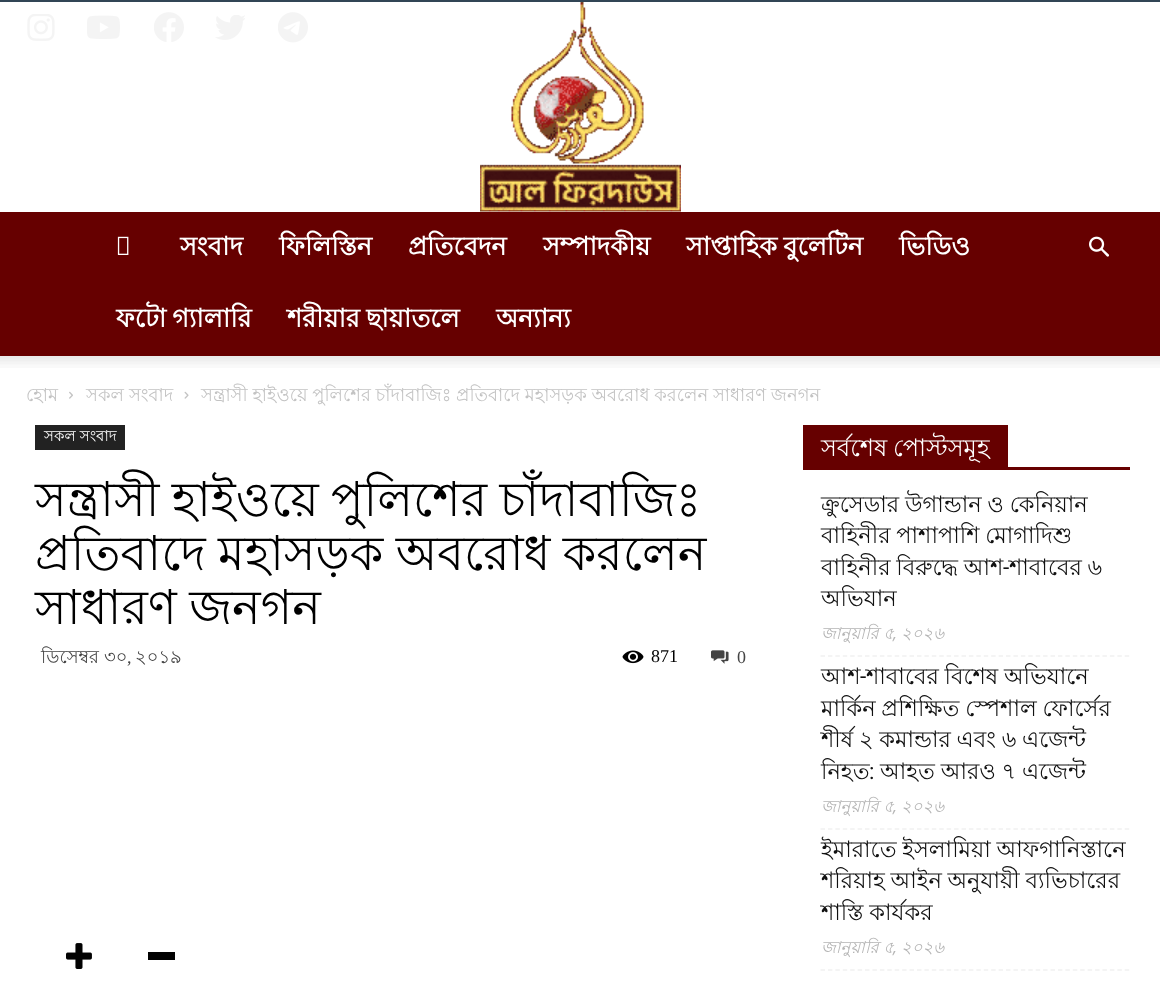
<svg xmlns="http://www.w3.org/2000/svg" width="1160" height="987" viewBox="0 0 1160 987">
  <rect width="100%" height="100%" fill="#fff"/>
  <path d="M0 0h1160v2H0z" fill="#314555"/>
  <image x="27" y="14" width="28" height="27" href="img/1.png"/>
  <image x="87" y="15" width="33" height="24" href="img/2.png"/>
  <image x="154" y="12" width="30" height="30" href="img/3.png"/>
  <image x="215" y="15" width="30" height="25" href="img/4.png"/>
  <image x="278" y="12" width="30" height="31" href="img/5.png"/>
  <image x="480" y="2" width="201" height="210" href="img/6.png"/>
  <path d="M0 212h1160v144H0z" fill="#600"/>
  <image x="117" y="236" width="12" height="19" href="img/7.png"/>
  <image x="1089" y="236" width="20" height="21" href="img/8.png"/>
  <image x="0" y="356" width="1160" height="12" href="img/9.png"/>
  <image x="69" y="391" width="4" height="8" href="img/10.png"/>
  <image x="184" y="391" width="5" height="8" href="img/11.png"/>
  <path d="M35 425h90v25H35z" fill="#222"/>
  <image x="622" y="650" width="22" height="14" href="img/12.png"/>
  <image x="711" y="650" width="18" height="14" href="img/13.png"/>
  <image x="66" y="943" width="26" height="26" href="img/14.png"/>
  <path d="M148 952h27v8H148z" fill="#020202"/>
  <path d="M803 467h327v3H803z" fill="#600"/>
  <path d="M803 425h205v42H803z" fill="#600"/>
  <path d="M820.5 656H1129.5" fill="none" stroke="#f1f1f1" stroke-width="1.5" stroke-dasharray="4.5 2.92"/>
  <path d="M820.5 829H1129.5" fill="none" stroke="#f1f1f1" stroke-width="1.5" stroke-dasharray="4.5 2.92"/>
  <path d="M820.5 970H1129.5" fill="none" stroke="#f1f1f1" stroke-width="1.5" stroke-dasharray="4.5 2.92"/>
  <g font-family="Lohit Bengali" font-size="25.5" font-weight="bold" fill="#fff">
    <text x="180" y="255">সংবাদ</text>
    <text x="279" y="255">ফিলিস্তিন</text>
    <text x="408" y="255">প্রতিবেদন</text>
    <text x="543" y="255">সম্পাদকীয়</text>
    <text x="686" y="255" word-spacing="-1">সাপ্তাহিক বুলেটিন</text>
    <text x="899" y="255">ভিডিও</text>
    <text x="116" y="327" word-spacing="-1">ফটো গ্যালারি</text>
    <text x="287" y="327" word-spacing="-1">শরীয়ার ছায়াতলে</text>
    <text x="496" y="327">অন্যান্য</text>
  </g>
  <g font-family="Lohit Bengali" font-size="18" fill="#c3c3c3">
    <text x="26" y="401">হোম</text>
    <text x="86" y="401">সকল সংবাদ</text>
    <text x="201" y="401" word-spacing="-0.25">সন্ত্রাসী হাইওয়ে পুলিশের চাঁদাবাজিঃ প্রতিবাদে মহাসড়ক অবরোধ করলেন সাধারণ জনগন</text>
  </g>
  <text x="44" y="441" font-family="Lohit Bengali" font-size="15" fill="#fff">সকল সংবাদ</text>
  <g font-family="Lohit Bengali" font-size="48" fill="#000">
    <text x="35" y="516" word-spacing="-1">সন্ত্রাসী হাইওয়ে পুলিশের চাঁদাবাজিঃ</text>
    <text x="35" y="570" word-spacing="-1">প্রতিবাদে মহাসড়ক অবরোধ করলেন</text>
    <text x="35" y="624" word-spacing="-1">সাধারণ জনগন</text>
  </g>
  <text x="41" y="663" font-family="Lohit Bengali" font-size="18" fill="#444">ডিসেম্বর ৩০</text>
  <text x="127" y="663" font-family="Liberation Serif" font-size="18" fill="#444">,</text>
  <text x="135" y="663" font-family="Lohit Bengali" font-size="18" fill="#444">২০১৯</text>
  <text x="651" y="662" font-family="Liberation Serif" font-size="18" fill="#000">871</text>
  <text x="737" y="663" font-family="Liberation Serif" font-size="18" fill="#444">0</text>
  <text x="821" y="456" word-spacing="-1" font-family="Lohit Bengali" font-size="24" fill="#fff">সর্বশেষ পোস্টসমূহ</text>
  <g font-family="Lohit Bengali" font-size="22.5" fill="#111">
    <text x="821" y="512" word-spacing="-0.5">ক্রুসেডার উগান্ডান ও কেনিয়ান</text>
    <text x="821" y="543" word-spacing="-0.5">বাহিনীর পাশাপাশি মোগাদিশু</text>
    <text x="821" y="575" word-spacing="-0.5">বাহিনীর বিরুদ্ধে আশ</text>
  </g>
  <text x="1003" y="575" font-family="Roboto" font-size="22.5" fill="#111">-</text>
  <g font-family="Lohit Bengali" font-size="22.5" fill="#111">
    <text x="1009" y="575" word-spacing="-0.5">শাবাবের ৬</text>
    <text x="821" y="606">অভিযান</text>
  </g>
  <g font-family="Lohit Bengali" font-size="16.5" font-style="italic" fill="#b5b5b5">
    <text x="821" y="639">জানুয়ারি ৫</text>
    <text x="901" y="639">২০২৬</text>
  </g>
  <text x="893" y="639" font-family="Open Sans" font-size="16.5" font-style="italic" fill="#b5b5b5">,</text>
  <text x="821" y="684" font-family="Lohit Bengali" font-size="22.5" fill="#111">আশ</text>
  <text x="860" y="684" font-family="Roboto" font-size="22.5" fill="#111">-</text>
  <g font-family="Lohit Bengali" font-size="22.5" fill="#111">
    <text x="866" y="684" word-spacing="-0.5">শাবাবের বিশেষ অভিযানে</text>
    <text x="821" y="716" word-spacing="-0.5">মার্কিন প্রশিক্ষিত স্পেশাল ফোর্সের</text>
    <text x="821" y="747" word-spacing="-0.5">শীর্ষ ২ কমান্ডার এবং ৬ এজেন্ট</text>
    <text x="821" y="779">নিহত</text>
  </g>
  <text x="869" y="779" font-family="Roboto" font-size="22.5" fill="#111">:</text>
  <text x="880" y="779" word-spacing="-0.5" font-family="Lohit Bengali" font-size="22.5" fill="#111">আহত আরও ৭ এজেন্ট</text>
  <g font-family="Lohit Bengali" font-size="16.5" font-style="italic" fill="#b5b5b5">
    <text x="821" y="812">জানুয়ারি ৫</text>
    <text x="901" y="812">২০২৬</text>
  </g>
  <text x="893" y="812" font-family="Open Sans" font-size="16.5" font-style="italic" fill="#b5b5b5">,</text>
  <g font-family="Lohit Bengali" font-size="22.5" fill="#111">
    <text x="821" y="857" word-spacing="-0.5">ইমারাতে ইসলামিয়া আফগানিস্তানে</text>
    <text x="821" y="888" word-spacing="-0.5">শরিয়াহ আইন অনুযায়ী ব্যভিচারের</text>
    <text x="821" y="920" word-spacing="-0.5">শাস্তি কার্যকর</text>
  </g>
  <g font-family="Lohit Bengali" font-size="16.5" font-style="italic" fill="#b5b5b5">
    <text x="821" y="953">জানুয়ারি ৫</text>
    <text x="901" y="953">২০২৬</text>
  </g>
  <text x="893" y="953" font-family="Open Sans" font-size="16.5" font-style="italic" fill="#b5b5b5">,</text>
</svg>
